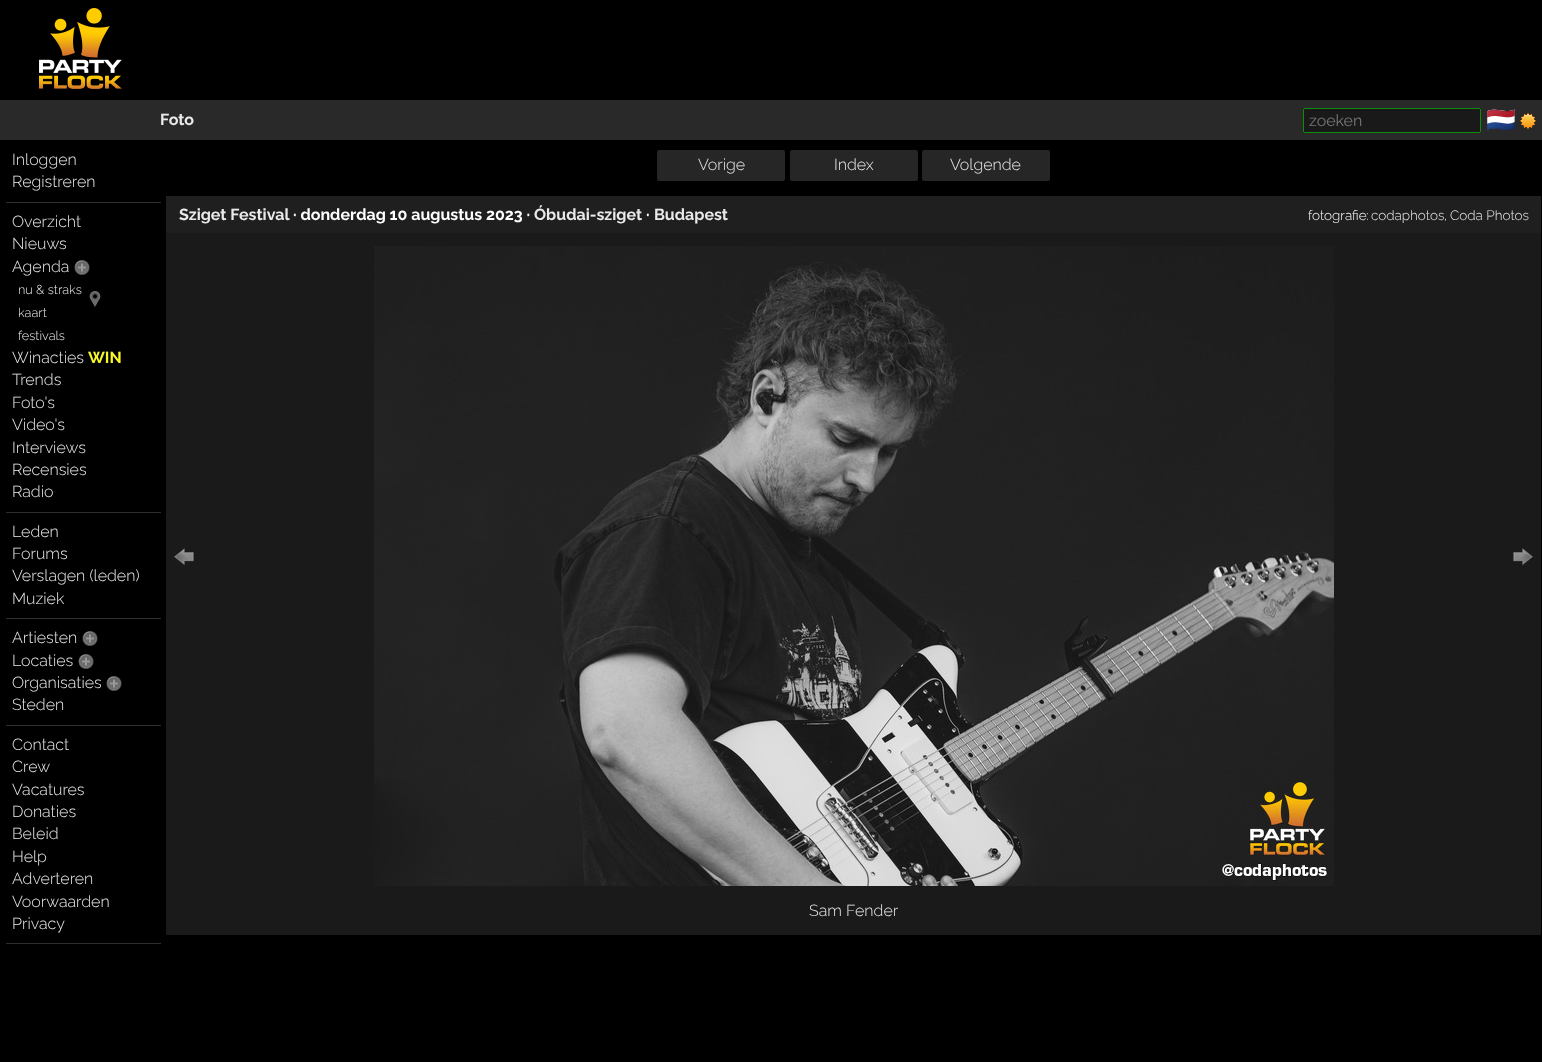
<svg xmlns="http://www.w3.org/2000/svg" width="1542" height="1062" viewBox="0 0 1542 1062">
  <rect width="100%" height="100%" fill="#000"/>
  <image x="39" y="8" width="83" height="81" href="img/1.png"/>
  <path d="M0 100h1542v40H0z" fill="#292929"/>
  <rect x="1303.5" y="108.5" width="177" height="24" rx="1.5" fill="#191919" stroke="#0d8c0d"/>
  <image x="1520" y="113" width="16" height="16" href="img/2.png"/>
  <path d="M6 202h155v1H6z" fill="#2e2e2e"/>
  <image x="74" y="260" width="16" height="15" href="img/3.png"/>
  <image x="89" y="291" width="12" height="16" href="img/4.png"/>
  <path d="M6 512h155v1H6z" fill="#2e2e2e"/>
  <path d="M6 618h155v1H6z" fill="#2e2e2e"/>
  <image x="82" y="631" width="16" height="15" href="img/3.png"/>
  <image x="78" y="654" width="16" height="15" href="img/3.png"/>
  <image x="106" y="676" width="16" height="15" href="img/3.png"/>
  <path d="M6 725h155v1H6z" fill="#2e2e2e"/>
  <path d="M6 943h155v1H6z" fill="#2e2e2e"/>
  <rect x="657" y="150" width="128" height="31" rx="2" fill="#262626"/>
  <rect x="790" y="150" width="128" height="31" rx="2" fill="#262626"/>
  <rect x="922" y="150" width="128" height="31" rx="2" fill="#262626"/>
  <rect x="166" y="196" width="1375" height="739" rx="1" fill="#1a1a1a"/>
  <path d="M166 196h1375v37H166z" fill="#1f1f1f"/>
  <image x="174" y="548" width="20" height="17" href="img/5.png"/>
  <image x="374" y="246" width="960" height="640" href="img/6.png"/>
  <image x="1513" y="548" width="20" height="17" href="img/7.png"/>
  <text x="160" y="125" font-family="Raleway" font-size="16" font-weight="bold" fill="#eaeaea">Foto</text>
  <text x="1309" y="126" font-family="Raleway" font-size="16" fill="#777">zoeken</text>
  <text x="1486" y="128" font-family="Noto Color Emoji" font-size="24" fill="#eaeaea">🇳🇱</text>
  <g font-family="Raleway" font-size="16" font-weight="300" fill="#eaeaea">
    <text x="12" y="165">Inloggen</text>
    <text x="12" y="187">Registreren</text>
    <text x="12" y="227">Overzicht</text>
    <text x="12" y="249">Nieuws</text>
    <text x="12" y="272">Agenda</text>
  </g>
  <g font-family="Raleway" font-size="12.75" font-weight="300" fill="#eaeaea">
    <text x="18" y="294">nu &amp; straks</text>
    <text x="18" y="317">kaart</text>
    <text x="18" y="340">festivals</text>
  </g>
  <text x="12" y="363" font-family="Raleway" font-size="16" font-weight="300" fill="#eaeaea">Winacties</text>
  <text x="88" y="363" font-family="Raleway" font-size="16" font-weight="bold" fill="#f6f62a">WIN</text>
  <g font-family="Raleway" font-size="16" font-weight="300" fill="#eaeaea">
    <text x="12" y="385">Trends</text>
    <text x="12" y="408">Foto's</text>
    <text x="12" y="430">Video's</text>
    <text x="12" y="453">Interviews</text>
    <text x="12" y="475">Recensies</text>
    <text x="12" y="497">Radio</text>
    <text x="12" y="537">Leden</text>
    <text x="12" y="559">Forums</text>
    <text x="12" y="581">Verslagen (leden)</text>
    <text x="12" y="604">Muziek</text>
    <text x="12" y="643">Artiesten</text>
    <text x="12" y="666">Locaties</text>
    <text x="12" y="688">Organisaties</text>
    <text x="12" y="710">Steden</text>
    <text x="12" y="750">Contact</text>
    <text x="12" y="772">Crew</text>
    <text x="12" y="795">Vacatures</text>
    <text x="12" y="817">Donaties</text>
    <text x="12" y="839">Beleid</text>
    <text x="12" y="862">Help</text>
    <text x="12" y="884">Adverteren</text>
    <text x="12" y="907">Voorwaarden</text>
    <text x="12" y="929">Privacy</text>
    <text x="698" y="170">Vorige</text>
    <text x="834" y="170">Index</text>
    <text x="950" y="170">Volgende</text>
  </g>
  <text x="179" y="220" font-family="Raleway" font-size="16" font-weight="bold" fill="#eaeaea">Sziget Festival</text>
  <text x="293" y="220" font-family="Raleway" font-size="16" font-weight="bold" fill="#fff">· donderdag 10 augustus 2023 ·</text>
  <text x="534" y="220" font-family="Raleway" font-size="16" font-weight="bold" fill="#eaeaea">Óbudai-sziget</text>
  <text x="646" y="220" font-family="Raleway" font-size="16" font-weight="bold" fill="#fff">·</text>
  <text x="654" y="220" font-family="Raleway" font-size="16" font-weight="bold" fill="#eaeaea">Budapest</text>
  <text x="1308" y="220" font-family="Raleway" font-size="13.5" font-weight="300" fill="#fff">fotografie:</text>
  <text x="1371" y="220" font-family="Raleway" font-size="13.5" font-weight="300" fill="#eaeaea">codaphotos</text>
  <text x="1444" y="220" font-family="Raleway" font-size="13.5" font-weight="300" fill="#fff">,</text>
  <text x="1450" y="220" font-family="Raleway" font-size="13.5" font-weight="300" fill="#eaeaea">Coda Photos</text>
  <text x="809" y="916" font-family="Raleway" font-size="16" font-weight="300" fill="#eaeaea">Sam Fender</text>
</svg>
